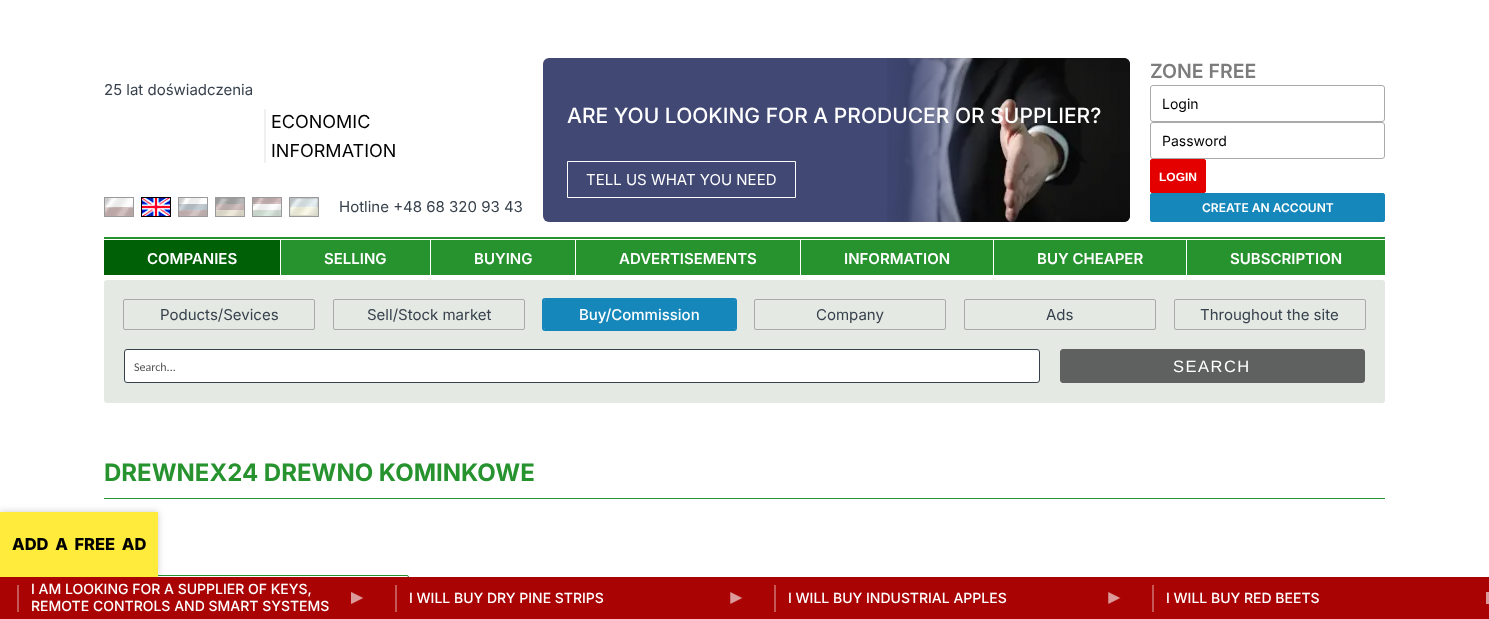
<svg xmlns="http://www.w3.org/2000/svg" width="1489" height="619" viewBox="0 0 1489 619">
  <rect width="100%" height="100%" fill="#fff"/>
  <path d="M264 109h2v54H264z" fill="#f0f0f0"/>
  <image x="104" y="197" width="30" height="20" href="img/1.png"/>
  <image x="141" y="197" width="30" height="20" href="img/2.png"/>
  <image x="178" y="197" width="30" height="20" href="img/3.png"/>
  <image x="215" y="197" width="30" height="20" href="img/4.png"/>
  <image x="252" y="197" width="30" height="20" href="img/5.png"/>
  <image x="289" y="197" width="30" height="20" href="img/6.png"/>
  <rect x="543" y="58" width="587" height="164" rx="6" fill="#404873"/>
  <image x="887" y="58" width="243" height="164" href="img/7.png"/>
  <path d="M567.5 161.5h228v36H567.5z" fill="none" stroke="#fff"/>
  <rect x="1150.5" y="85.5" width="234" height="36" rx="2.5" fill="none" stroke="#aaa"/>
  <rect x="1150.5" y="122.5" width="234" height="36" rx="2.5" fill="none" stroke="#aaa"/>
  <rect x="1150.5" y="159.5" width="55" height="33" rx="1.5" fill="#e50000" stroke="#e50000"/>
  <rect x="1150.5" y="193.5" width="234" height="28" rx="1.5" fill="#1587bb" stroke="#1587bb"/>
  <path d="M104 237h1281v2H104z" fill="#27932e"/>
  <path d="M104 240h176v35H104z" fill="#006006"/>
  <path d="M281 240h149v35H281z" fill="#27932e"/>
  <path d="M431 240h144v35H431z" fill="#27932e"/>
  <path d="M576 240h224v35H576z" fill="#27932e"/>
  <path d="M801 240h192v35H801z" fill="#27932e"/>
  <path d="M994 240h192v35H994z" fill="#27932e"/>
  <path d="M1187 240h198v35H1187z" fill="#27932e"/>
  <rect x="104" y="280" width="1281" height="123" rx="3" fill="#e5e9e4"/>
  <rect x="123.5" y="299.5" width="191" height="30" rx="1.5" fill="none" stroke="#aaa"/>
  <rect x="333.5" y="299.5" width="191" height="30" rx="1.5" fill="none" stroke="#aaa"/>
  <rect x="543" y="299" width="193" height="31" rx="2" fill="none" stroke="#1587bb" stroke-width="2"/>
  <rect x="544" y="300" width="191" height="29" rx="1" fill="#1587bb"/>
  <rect x="754.5" y="299.5" width="191" height="30" rx="1.5" fill="none" stroke="#aaa"/>
  <rect x="964.5" y="299.5" width="191" height="30" rx="1.5" fill="none" stroke="#aaa"/>
  <rect x="1174.5" y="299.5" width="191" height="30" rx="1.5" fill="none" stroke="#aaa"/>
  <rect x="124.5" y="349.5" width="915" height="33" rx="2.5" fill="#fff" stroke="#37414c"/>
  <rect x="1060.5" y="349.5" width="304" height="33" rx="2.5" fill="#5f6160" stroke="#5f6160"/>
  <path d="M104 498h1281v1H104z" fill="#27932e"/>
  <rect x="104.5" y="575.5" width="304" height="39" rx="1.5" fill="none" stroke="#27932e"/>
  <path d="M0 512h158v65H0z" fill="#00000033" filter="blur(3.5px)"/>
  <path d="M0 512h158v65H0z" fill="#ffeb3b"/>
  <path d="M0 577h1489v42H0z" fill="#a90303"/>
  <path d="M17 585h2v27H17z" fill="#c65757"/>
  <image x="351" y="592" width="13" height="12" href="img/8.png"/>
  <path d="M395 585h2v27H395z" fill="#c65757"/>
  <image x="730" y="592" width="13" height="12" href="img/9.png"/>
  <path d="M774 585h2v27H774z" fill="#c65757"/>
  <image x="1108" y="592" width="13" height="12" href="img/9.png"/>
  <path d="M1152 585h2v27H1152z" fill="#c65757"/>
  <path d="M1486 592h3v12H1486z" fill="#dd9a9a"/>
  <text x="104" y="95" font-family="Inter" font-size="15" fill="#37414c">25 lat doświadczenia</text>
  <g font-family="Inter" font-size="18" fill="#000">
    <text x="271" y="128">ECONOMIC</text>
    <text x="271" y="157">INFORMATION</text>
  </g>
  <text x="339" y="212" font-family="Inter" font-size="15" fill="#37414c">Hotline +48 68 320 93 43</text>
  <text x="567" y="123" font-family="Inter" font-size="21" font-weight="500" fill="#fff">ARE YOU LOOKING FOR A PRODUCER OR SUPPLIER?</text>
  <text x="586" y="185" font-family="Inter" font-size="15" fill="#fff">TELL US WHAT YOU NEED</text>
  <text x="1150" y="78" font-family="Inter" font-size="19.5" font-weight="600" fill="#7c7c7c">ZONE FREE</text>
  <g font-family="Inter" font-size="14" fill="#000">
    <text x="1162" y="109">Login</text>
    <text x="1162" y="146">Password</text>
  </g>
  <text x="1159" y="181" font-family="Liberation Sans" font-size="12" font-weight="bold" fill="#fff">LOGIN</text>
  <text x="1202" y="212" font-family="Inter" font-size="12" font-weight="600" fill="#fff">CREATE AN ACCOUNT</text>
  <g font-family="Inter" font-size="15" font-weight="600" fill="#fff">
    <text x="147" y="264">COMPANIES</text>
    <text x="324" y="264">SELLING</text>
    <text x="474" y="264">BUYING</text>
    <text x="619" y="264">ADVERTISEMENTS</text>
    <text x="844" y="264">INFORMATION</text>
    <text x="1037" y="264">BUY CHEAPER</text>
    <text x="1230" y="264">SUBSCRIPTION</text>
  </g>
  <g font-family="Inter" font-size="15" fill="#37414c">
    <text x="160" y="320">Poducts/Sevices</text>
    <text x="367" y="320">Sell/Stock market</text>
  </g>
  <text x="579" y="320" font-family="Inter" font-size="15" font-weight="500" fill="#fff">Buy/Commission</text>
  <g font-family="Inter" font-size="15" fill="#37414c">
    <text x="816" y="320">Company</text>
    <text x="1046" y="320">Ads</text>
    <text x="1200" y="320">Throughout the site</text>
  </g>
  <text x="134" y="371" font-family="Carlito" font-size="12" fill="#555">Search...</text>
  <text x="1173" y="372" font-family="Liberation Sans" font-size="16.5" letter-spacing="1.5" fill="#fff">SEARCH</text>
  <text x="104" y="481" font-family="Inter" font-size="24" font-weight="bold" fill="#27932e">DREWNEX24 DREWNO KOMINKOWE</text>
  <text x="12" y="550" word-spacing="3" font-family="Inter" font-size="16.5" font-weight="800" fill="#000">ADD A FREE AD</text>
  <g font-family="Inter" font-size="14" font-weight="500" fill="#fff">
    <text x="31" y="594">I AM LOOKING FOR A SUPPLIER OF KEYS,</text>
    <text x="31" y="611">REMOTE CONTROLS AND SMART SYSTEMS</text>
    <text x="409" y="603">I WILL BUY DRY PINE STRIPS</text>
    <text x="788" y="603">I WILL BUY INDUSTRIAL APPLES</text>
    <text x="1166" y="603">I WILL BUY RED BEETS</text>
  </g>
</svg>
